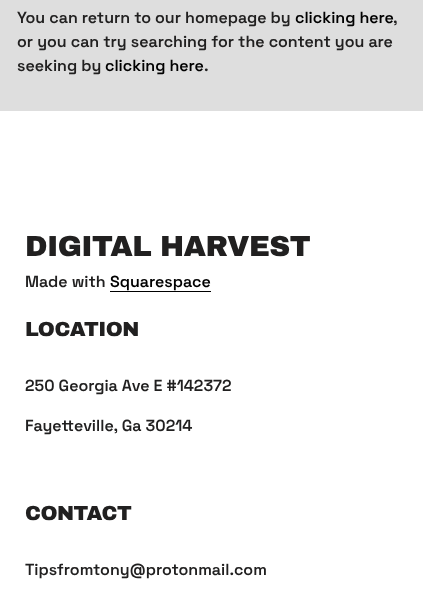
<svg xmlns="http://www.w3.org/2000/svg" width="423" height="606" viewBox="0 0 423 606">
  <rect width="100%" height="100%" fill="#dedede"/>
  <path d="M0 111h423v495H0z" fill="#fff"/>
  <path d="M110 291h101v1H110z" fill="#000"/>
  <text x="17" y="23" font-family="Space Grotesk" font-size="16" font-weight="600" fill="#212020">You can return to our homepage by</text>
  <text x="295" y="23" font-family="Space Grotesk" font-size="16" font-weight="600" fill="#000">clicking here</text>
  <g font-family="Space Grotesk" font-size="16" font-weight="600" fill="#212020">
    <text x="393" y="23">,</text>
    <text x="17" y="47">or you can try searching for the content you are</text>
    <text x="17" y="71">seeking by</text>
  </g>
  <text x="105" y="71" font-family="Space Grotesk" font-size="16" font-weight="600" fill="#000">clicking here</text>
  <text x="204" y="71" font-family="Space Grotesk" font-size="16" font-weight="600" fill="#212020">.</text>
  <text x="25" y="256" font-family="Archivo Black" font-size="29" font-weight="900" letter-spacing="-0.6" fill="#212020">DIGITAL HARVEST</text>
  <text x="25" y="287" font-family="Space Grotesk" font-size="16" font-weight="600" fill="#212020">Made with</text>
  <text x="110" y="287" font-family="Space Grotesk" font-size="16" font-weight="600" fill="#000">Squarespace</text>
  <text x="25" y="336" font-family="Archivo Black" font-size="20.5" font-weight="900" letter-spacing="-0.5" fill="#212020">LOCATION</text>
  <g font-family="Space Grotesk" font-size="16" font-weight="600" fill="#212020">
    <text x="25" y="391">250 Georgia Ave E #142372</text>
    <text x="25" y="431">Fayetteville, Ga 30214</text>
  </g>
  <text x="25" y="520" font-family="Archivo Black" font-size="20.5" font-weight="900" letter-spacing="-0.5" fill="#212020">CONTACT</text>
  <text x="25" y="575" font-family="Space Grotesk" font-size="16" font-weight="600" fill="#212020">Tipsfromtony@protonmail.com</text>
</svg>
